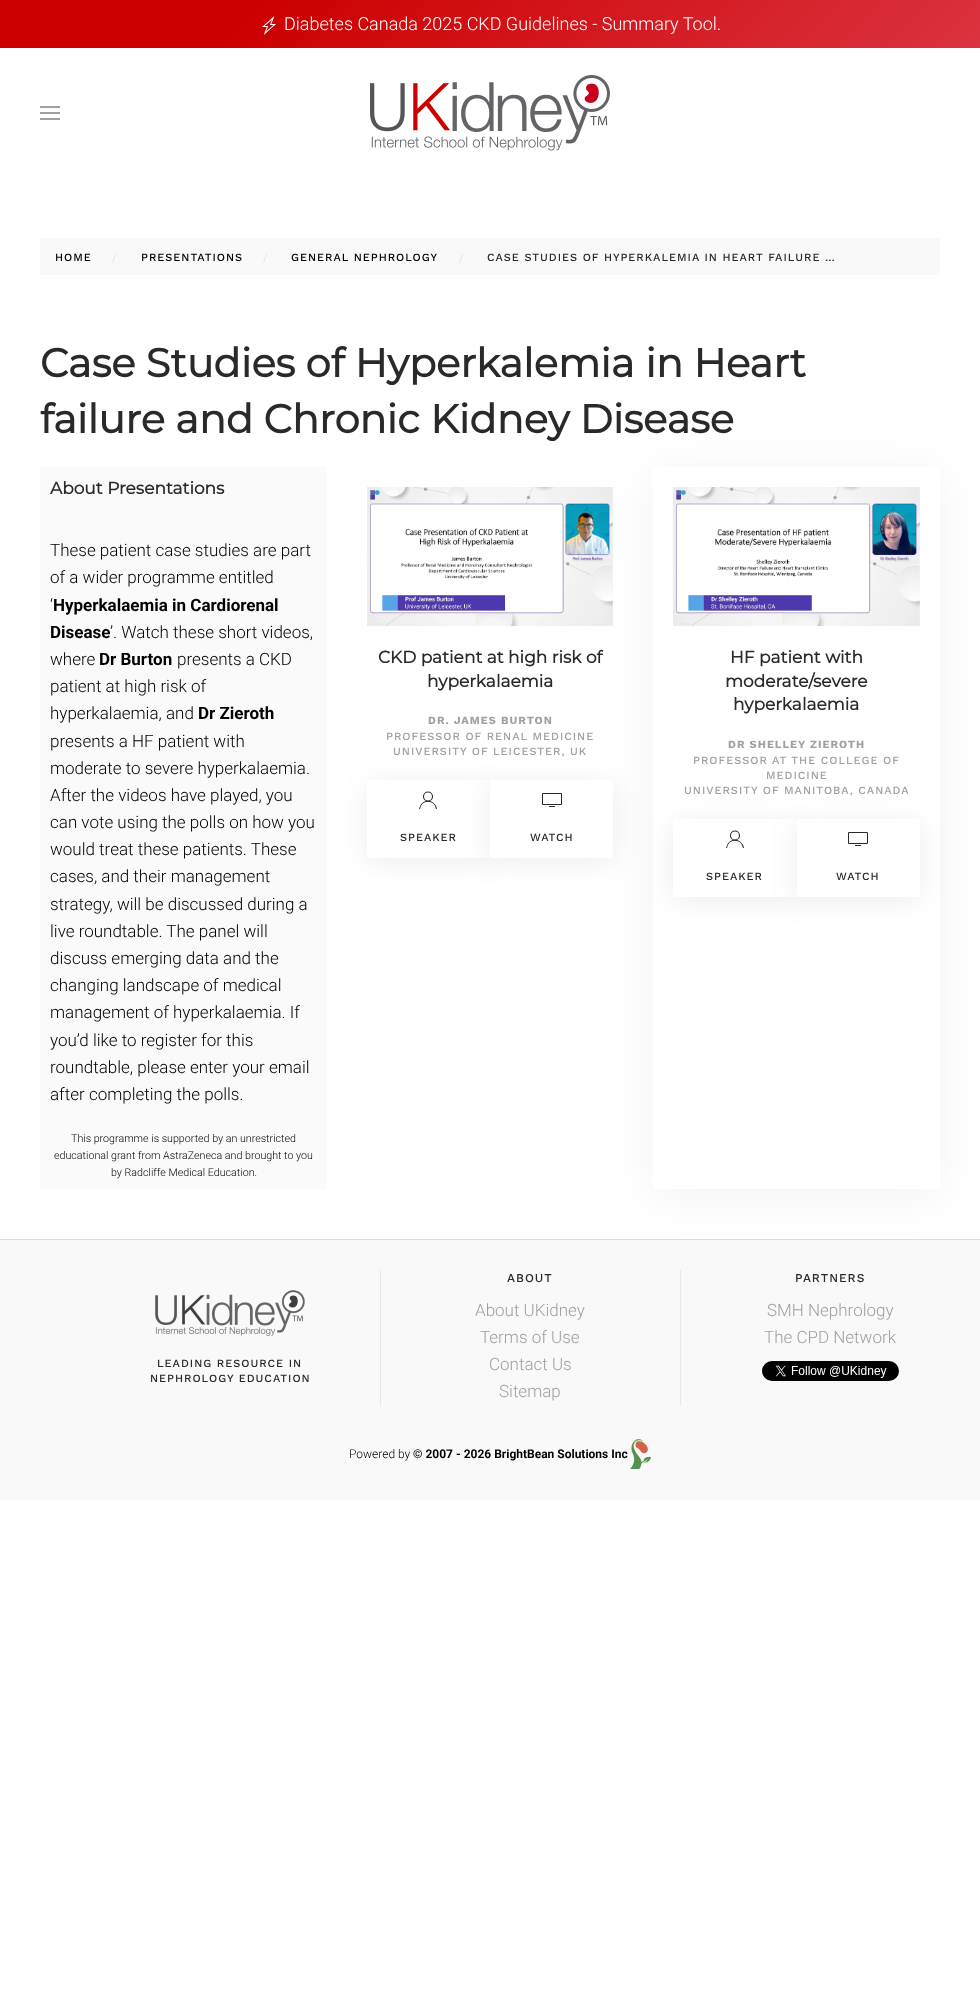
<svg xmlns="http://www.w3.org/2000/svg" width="980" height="2014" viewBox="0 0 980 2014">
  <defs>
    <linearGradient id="g1" gradientUnits="userSpaceOnUse" x1="747" y1="281" x2="233" y2="-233"><stop offset="0" stop-color="#db3340"/><stop offset="0.74" stop-color="#c00"/></linearGradient>
    <clipPath id="clip1"><path d="M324 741H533V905H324ZM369 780H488C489 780 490 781 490 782V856C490 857 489 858 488 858H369C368 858 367 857 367 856V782C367 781 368 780 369 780Z" clip-rule="evenodd"/></clipPath>
    <clipPath id="clip2"><path d="M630 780H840V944H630ZM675 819H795C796 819 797 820 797 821V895C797 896 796 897 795 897H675C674 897 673 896 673 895V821C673 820 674 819 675 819Z" clip-rule="evenodd"/></clipPath>
  </defs>
  <rect width="100%" height="100%" fill="#fff"/>
  <path d="M0 0h980v48H0z" fill="url(#g1)"/>
  <image x="262" y="16" width="14" height="19" href="img/1.png"/>
  <path d="M40 106h20v2H40z" fill="#a0a0a0"/>
  <path d="M40 112h20v2H40z" fill="#a0a0a0"/>
  <path d="M40 118h20v2H40z" fill="#a0a0a0"/>
  <image x="370" y="75" width="240" height="76" href="img/2.png"/>
  <path d="M40 238h900v37H40z" fill="#f9f9f9"/>
  <path d="M40 467h287v722H40z" fill="#fafafa"/>
  <image x="367" y="487" width="246" height="139" href="img/3.png"/>
  <g clip-path="url(#clip1)">
    <rect x="367" y="784" width="123" height="78" rx="2" fill="#00000012" filter="blur(14px)"/>
  </g>
  <circle cx="428" cy="796.5" r="4.5" fill="none" stroke="#292929" stroke-width="1.1"/>
  <path d="M419.5 809C421.5 798.5 434.5 799 436.5 809" fill="none" stroke="#292929" stroke-width="1.1"/>
  <rect x="490" y="784" width="123" height="78" rx="2" fill="#00000012" filter="blur(14px)"/>
  <rect x="490" y="780" width="123" height="78" rx="2" fill="#fff"/>
  <path d="M542.5 793.5h19v11H542.5z" fill="none" stroke="#292929"/>
  <path d="M549 806h6v1H549z" fill="#292929"/>
  <path d="M0 1240h980v260H0z" fill="#f9f9f9"/>
  <path d="M0 1239h980v1H0z" fill="#ddd"/>
  <path d="M653 473h287v722H653z" fill="#0000000d" filter="blur(25px)"/>
  <path d="M653 467h287v722H653z" fill="#fff"/>
  <image x="673" y="487" width="247" height="139" href="img/4.png"/>
  <g clip-path="url(#clip2)">
    <rect x="673" y="823" width="124" height="78" rx="2" fill="#00000012" filter="blur(14px)"/>
  </g>
  <circle cx="735" cy="835.5" r="4.5" fill="none" stroke="#292929" stroke-width="1.1"/>
  <path d="M726.5 848C728.5 837.5 741.5 838 743.5 848" fill="none" stroke="#292929" stroke-width="1.1"/>
  <rect x="797" y="823" width="123" height="78" rx="2" fill="#00000012" filter="blur(14px)"/>
  <rect x="797" y="819" width="123" height="78" rx="2" fill="#fff"/>
  <path d="M848.5 832.5h19v11H848.5z" fill="none" stroke="#292929"/>
  <path d="M855 845h6v1H855z" fill="#292929"/>
  <path d="M380 1270h1v136H380z" fill="#e9e9e9"/>
  <path d="M680 1270h1v136H680z" fill="#e9e9e9"/>
  <image x="762" y="1361" width="137" height="20" href="img/5.png"/>
  <image x="155" y="1290" width="150" height="46" href="img/6.png"/>
  <image x="630" y="1439" width="21" height="30" href="img/7.png"/>
  <text x="284" y="30" font-family="Roboto" font-size="18" font-weight="300" fill="#fff">Diabetes Canada 2025 CKD Guidelines - Summary Tool.</text>
  <text x="55" y="261" font-family="Work Sans" font-size="11" font-weight="500" letter-spacing="1" fill="#000">HOME</text>
  <text x="112" y="262" font-family="Roboto" font-size="11" font-weight="300" fill="#dcdcdc">/</text>
  <text x="141" y="261" font-family="Work Sans" font-size="11" font-weight="500" letter-spacing="1" fill="#000">PRESENTATIONS</text>
  <text x="263" y="262" font-family="Roboto" font-size="11" font-weight="300" fill="#dcdcdc">/</text>
  <text x="291" y="261" font-family="Work Sans" font-size="11" font-weight="500" letter-spacing="1" fill="#000">GENERAL NEPHROLOGY</text>
  <text x="459" y="262" font-family="Roboto" font-size="11" font-weight="300" fill="#dcdcdc">/</text>
  <text x="487" y="261" font-family="Work Sans" font-size="11" font-weight="500" letter-spacing="1" fill="#292929">CASE STUDIES OF HYPERKALEMIA IN HEART FAILURE …</text>
  <g font-family="Montserrat" font-size="40" font-weight="bold" fill="#292929">
    <text x="40" y="377">Case Studies of Hyperkalemia in Heart</text>
    <text x="40" y="433">failure and Chronic Kidney Disease</text>
  </g>
  <text x="50" y="494" font-family="Montserrat" font-size="17" font-weight="bold" fill="#292929">About Presentations</text>
  <g font-family="Roboto" font-size="17" font-weight="300" fill="#000">
    <text x="50" y="556">These patient case studies are part</text>
    <text x="50" y="583">of a wider programme entitled</text>
    <text x="50" y="611">‘</text>
  </g>
  <g font-family="Roboto" font-size="17" font-weight="bold" fill="#000">
    <text x="53" y="611">Hyperkalaemia in Cardiorenal</text>
    <text x="50" y="638">Disease</text>
  </g>
  <g font-family="Roboto" font-size="17" font-weight="300" fill="#000">
    <text x="110" y="638">’. Watch these short videos,</text>
    <text x="50" y="665">where</text>
  </g>
  <text x="99" y="665" font-family="Roboto" font-size="17" font-weight="bold" fill="#000">Dr Burton</text>
  <g font-family="Roboto" font-size="17" font-weight="300" fill="#000">
    <text x="177" y="665">presents a CKD</text>
    <text x="50" y="692">patient at high risk of</text>
    <text x="50" y="719">hyperkalaemia, and</text>
  </g>
  <text x="198" y="719" font-family="Roboto" font-size="17" font-weight="bold" fill="#000">Dr Zieroth</text>
  <g font-family="Roboto" font-size="17" font-weight="300" fill="#000">
    <text x="50" y="747">presents a HF patient with</text>
    <text x="50" y="774">moderate to severe hyperkalaemia.</text>
    <text x="50" y="801">After the videos have played, you</text>
    <text x="50" y="828">can vote using the polls on how you</text>
    <text x="50" y="855">would treat these patients. These</text>
    <text x="50" y="882">cases, and their management</text>
    <text x="50" y="910">strategy, will be discussed during a</text>
    <text x="50" y="937">live roundtable. The panel will</text>
    <text x="50" y="964">discuss emerging data and the</text>
    <text x="50" y="991">changing landscape of medical</text>
    <text x="50" y="1018">management of hyperkalaemia. If</text>
    <text x="50" y="1046">you’d like to register for this</text>
    <text x="50" y="1073">roundtable, please enter your email</text>
    <text x="50" y="1100">after completing the polls.</text>
  </g>
  <g font-family="Roboto" font-size="10.7" font-weight="300" fill="#000">
    <text x="71" y="1142">This programme is supported by an unrestricted</text>
    <text x="54" y="1159">educational grant from AstraZeneca and brought to you</text>
    <text x="111" y="1176">by Radcliffe Medical Education.</text>
  </g>
  <g font-family="Montserrat" font-size="17" font-weight="bold" fill="#292929">
    <text x="378" y="663">CKD patient at high risk of</text>
    <text x="427" y="687">hyperkalaemia</text>
  </g>
  <text x="428" y="724" font-family="Work Sans" font-size="11" font-weight="bold" letter-spacing="1" fill="#a0a0a0">DR. JAMES BURTON</text>
  <g font-family="Work Sans" font-size="11" font-weight="500" letter-spacing="1" fill="#a0a0a0">
    <text x="386" y="740">PROFESSOR OF RENAL MEDICINE</text>
    <text x="393" y="755">UNIVERSITY OF LEICESTER, UK</text>
  </g>
  <g font-family="Work Sans" font-size="11" font-weight="500" letter-spacing="1" fill="#292929">
    <text x="400" y="841">SPEAKER</text>
    <text x="530" y="841">WATCH</text>
  </g>
  <g font-family="Montserrat" font-size="17" font-weight="bold" fill="#292929">
    <text x="730" y="663">HF patient with</text>
    <text x="725" y="687">moderate/severe</text>
    <text x="733" y="710">hyperkalaemia</text>
  </g>
  <text x="728" y="748" font-family="Work Sans" font-size="11" font-weight="bold" letter-spacing="1" fill="#a0a0a0">DR SHELLEY ZIEROTH</text>
  <g font-family="Work Sans" font-size="11" font-weight="500" letter-spacing="1" fill="#a0a0a0">
    <text x="693" y="764">PROFESSOR AT THE COLLEGE OF</text>
    <text x="766" y="779">MEDICINE</text>
    <text x="684" y="794">UNIVERSITY OF MANITOBA, CANADA</text>
  </g>
  <g font-family="Work Sans" font-size="11" font-weight="500" letter-spacing="1" fill="#292929">
    <text x="706" y="880">SPEAKER</text>
    <text x="836" y="880">WATCH</text>
  </g>
  <text x="507" y="1282" font-family="Work Sans" font-size="12" font-weight="500" letter-spacing="1" fill="#292929">ABOUT</text>
  <g font-family="Roboto" font-size="17" font-weight="300" fill="#a0a0a0">
    <text x="475" y="1316">About UKidney</text>
    <text x="480" y="1343">Terms of Use</text>
    <text x="489" y="1370">Contact Us</text>
    <text x="499" y="1397">Sitemap</text>
  </g>
  <text x="795" y="1282" font-family="Work Sans" font-size="12" font-weight="500" letter-spacing="1" fill="#292929">PARTNERS</text>
  <g font-family="Roboto" font-size="17" font-weight="300" fill="#a0a0a0">
    <text x="767" y="1316">SMH Nephrology</text>
    <text x="764" y="1343">The CPD Network</text>
  </g>
  <g font-family="Work Sans" font-size="11" font-weight="500" letter-spacing="1" fill="#292929">
    <text x="157" y="1367">LEADING RESOURCE IN</text>
    <text x="150" y="1382">NEPHROLOGY EDUCATION</text>
  </g>
  <text x="349" y="1458" font-family="Roboto" font-size="12" font-weight="300" fill="#000">Powered by</text>
  <text x="413" y="1458" font-family="Roboto" font-size="12" font-weight="bold" fill="#000">© 2007 - 2026 BrightBean Solutions Inc</text>
</svg>
